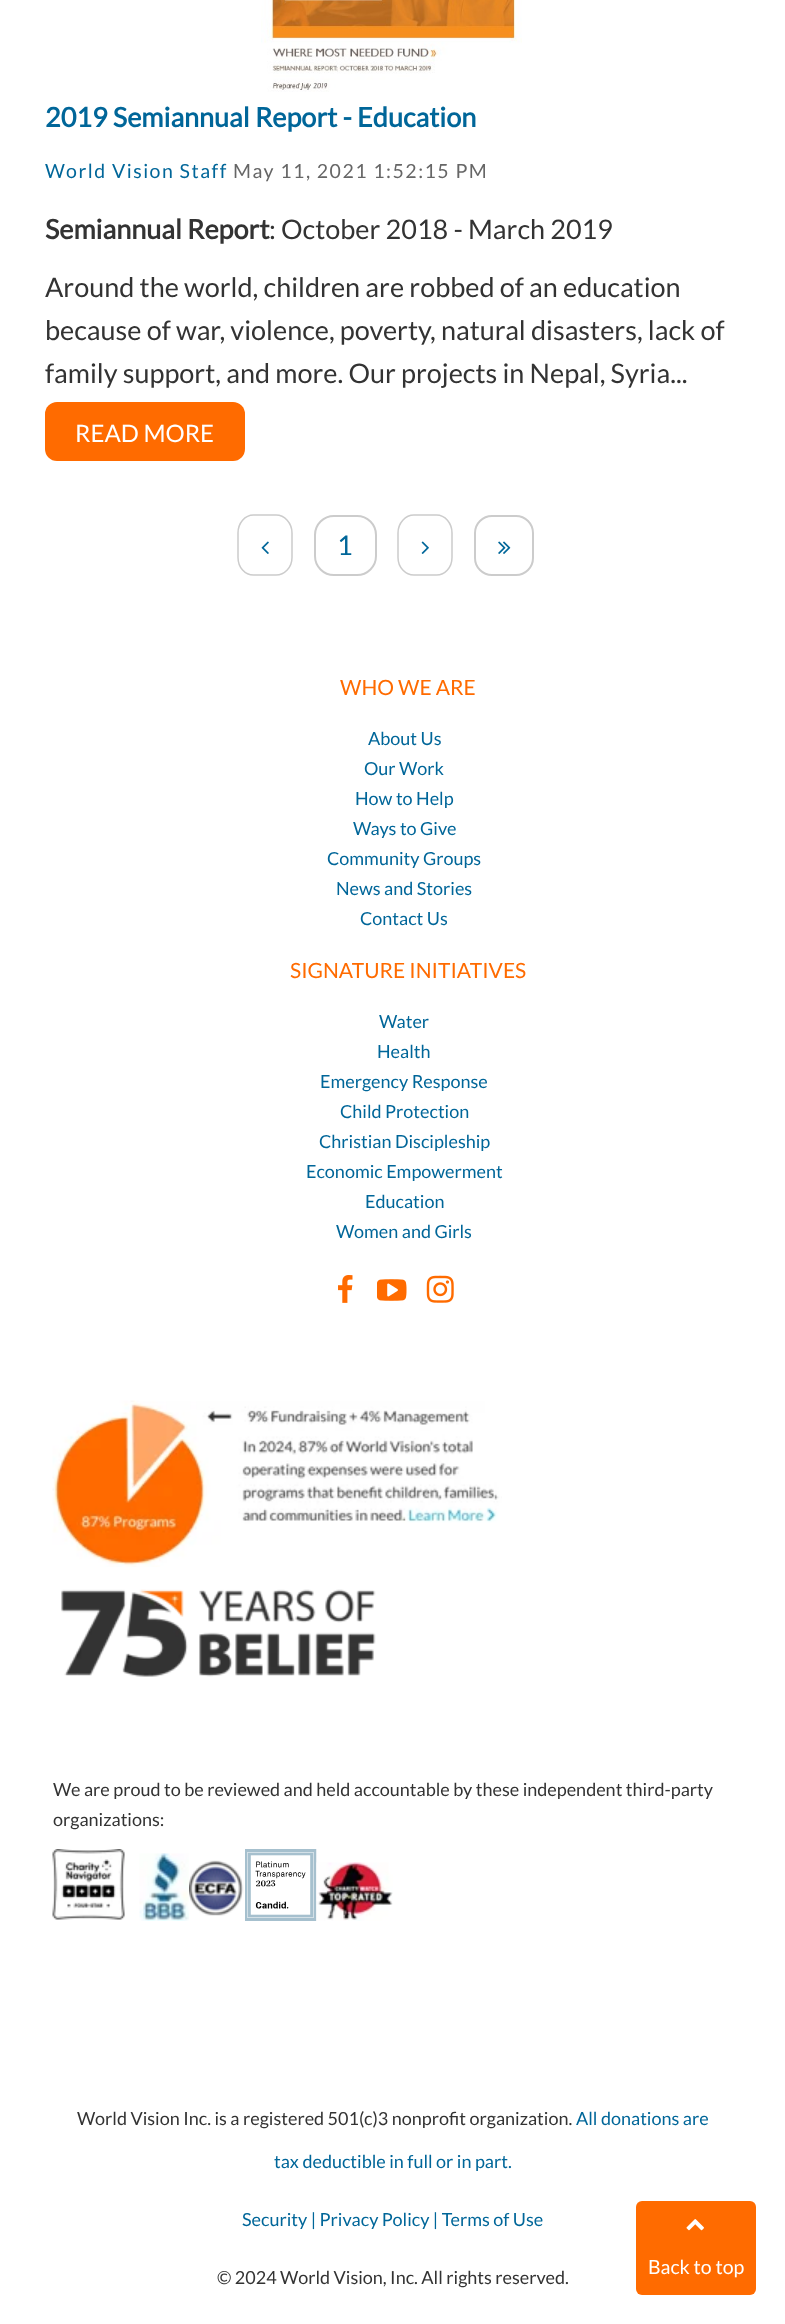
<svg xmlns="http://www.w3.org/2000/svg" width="785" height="2324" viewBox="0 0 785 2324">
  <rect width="100%" height="100%" fill="#fff"/>
  <image x="261" y="0" width="261" height="92" href="img/1.png"/>
  <rect x="45" y="402" width="200" height="59" rx="12" fill="#ff6b00"/>
  <path d="M253.5 515H276C284.5 515 292 523 292 533V557.5C292 567.5 284.5 575 276 575H253.5C245 575 238 567.5 238 557.5V533C238 523 245 515 253.5 515Z" fill="none" stroke="#ccc" stroke-width="1.5"/>
  <image x="261" y="541" width="8" height="13" href="img/2.png"/>
  <rect x="315" y="516" width="61" height="59" rx="19" fill="none" stroke="#ccc" stroke-width="2"/>
  <path d="M414 515H436.5C445 515 452 523 452 533V557.5C452 567.5 445 575 436.5 575H414C405.5 575 398 567.5 398 557.5V533C398 523 405.5 515 414 515Z" fill="none" stroke="#ccc" stroke-width="1.5"/>
  <image x="421" y="541" width="8" height="13" href="img/3.png"/>
  <rect x="475" y="516" width="58" height="59" rx="17" fill="none" stroke="#ccc" stroke-width="2"/>
  <image x="498" y="541" width="13" height="13" href="img/4.png"/>
  <image x="338" y="1275" width="15" height="28" href="img/5.png"/>
  <image x="377" y="1279" width="30" height="22" href="img/6.png"/>
  <image x="426" y="1275" width="28" height="28" href="img/7.png"/>
  <image x="52" y="1400" width="450" height="167" href="img/8.png"/>
  <image x="61" y="1589" width="315" height="88" href="img/9.png"/>
  <image x="52" y="1849" width="73" height="71" href="img/10.png"/>
  <image x="139" y="1853" width="50" height="68" href="img/11.png"/>
  <image x="189" y="1860" width="55" height="56" href="img/12.png"/>
  <image x="245" y="1849" width="72" height="72" href="img/13.png"/>
  <image x="316" y="1862" width="77" height="59" href="img/14.png"/>
  <rect x="636" y="2201" width="120" height="94" rx="6" fill="#ff6b00"/>
  <image x="686" y="2219" width="18" height="12" href="img/15.png"/>
  <text x="45" y="127" font-family="Lato" font-size="27" font-weight="bold" fill="#069">2019 Semiannual Report - Education</text>
  <text x="45" y="178" font-family="Lato" font-size="19.5" letter-spacing="1.5" fill="#069">World Vision Staff</text>
  <text x="233" y="178" font-family="Lato" font-size="19.5" letter-spacing="1.5" fill="#666">May 11, 2021 1:52:15 PM</text>
  <text x="45" y="239" font-family="Lato" font-size="27" font-weight="bold" fill="#333">Semiannual Report</text>
  <g font-family="Lato" font-size="27" fill="#333">
    <text x="269" y="239">: October 2018 - March 2019</text>
    <text x="45" y="297">Around the world, children are robbed of an education</text>
    <text x="45" y="340">because of war, violence, poverty, natural disasters, lack of</text>
    <text x="45" y="383">family support, and more. Our projects in Nepal, Syria...</text>
  </g>
  <text x="75" y="442" font-family="Lato" font-size="24" fill="#fff">READ MORE</text>
  <text x="337" y="555" font-family="Lato" font-size="27" fill="#069">1</text>
  <text x="340" y="695" font-family="Lato" font-size="21" fill="#ff6b00">WHO WE ARE</text>
  <g font-family="Lato" font-size="18" fill="#069">
    <text x="368" y="745">About Us</text>
    <text x="364" y="775">Our Work</text>
    <text x="355" y="805">How to Help</text>
    <text x="353" y="835">Ways to Give</text>
    <text x="327" y="865">Community Groups</text>
    <text x="336" y="895">News and Stories</text>
    <text x="360" y="925">Contact Us</text>
  </g>
  <text x="290" y="978" font-family="Lato" font-size="21" fill="#ff6b00">SIGNATURE INITIATIVES</text>
  <g font-family="Lato" font-size="18" fill="#069">
    <text x="379" y="1028">Water</text>
    <text x="377" y="1058">Health</text>
    <text x="320" y="1088">Emergency Response</text>
    <text x="340" y="1118">Child Protection</text>
    <text x="319" y="1148">Christian Discipleship</text>
    <text x="306" y="1178">Economic Empowerment</text>
    <text x="365" y="1208">Education</text>
    <text x="336" y="1238">Women and Girls</text>
  </g>
  <g font-family="Lato" font-size="18" fill="#333">
    <text x="53" y="1796">We are proud to be reviewed and held accountable by these independent third-party</text>
    <text x="53" y="1826">organizations:</text>
    <text x="77" y="2125">World Vision Inc. is a registered 501(c)3 nonprofit organization.</text>
  </g>
  <g font-family="Lato" font-size="18" fill="#069">
    <text x="576" y="2125">All donations are</text>
    <text x="274" y="2168">tax deductible in full or in part.</text>
    <text x="242" y="2226">Security | Privacy Policy | Terms of Use</text>
  </g>
  <text x="217" y="2284" font-family="Lato" font-size="18" fill="#333">© 2024 World Vision, Inc. All rights reserved.</text>
  <text x="648" y="2274" font-family="Lato" font-size="19.5" fill="#fff">Back to top</text>
</svg>
